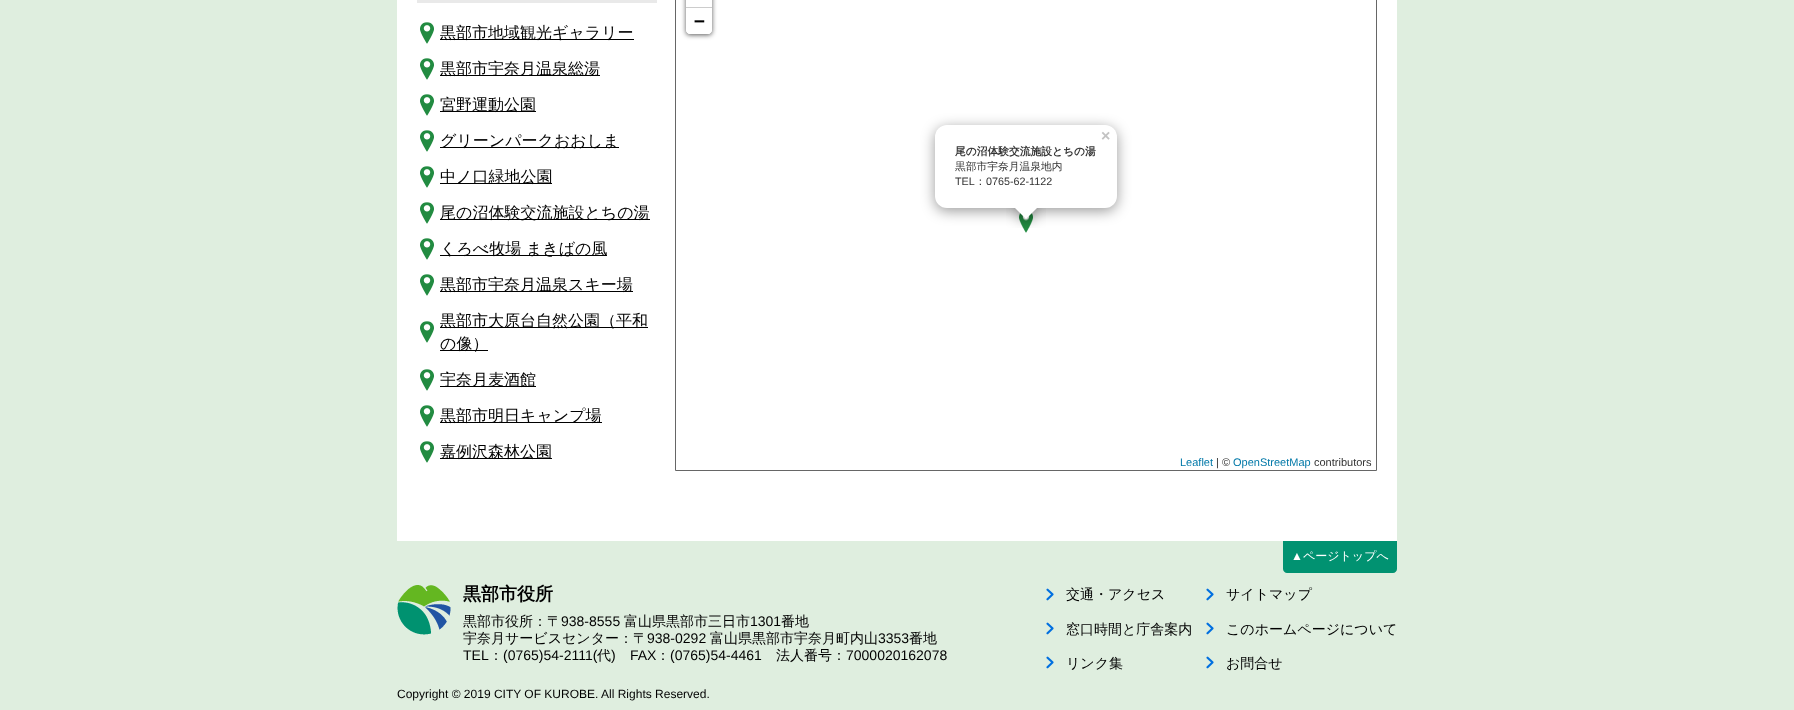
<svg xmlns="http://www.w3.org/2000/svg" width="1794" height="710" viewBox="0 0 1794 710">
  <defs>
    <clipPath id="clip1"><path d="M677 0H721V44H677ZM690-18H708C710-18 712-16 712-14V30C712 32 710 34 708 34H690C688 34 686 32 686 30V-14C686-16 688-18 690-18Z" clip-rule="evenodd"/></clipPath>
    <clipPath id="clip2"><path d="M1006 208h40v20H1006z"/></clipPath>
    <clipPath id="clip3"><path d="M1006 208h40v20H1006z"/></clipPath>
  </defs>
  <rect width="100%" height="100%" fill="#dfeedf"/>
  <path d="M397 0h1000v541H397z" fill="#fff"/>
  <path d="M417 0h240v3H417z" fill="#e9e9e9"/>
  <image x="420" y="22" width="14" height="22" href="img/1.png"/>
  <path d="M440 39h194v1H440z" fill="#000"/>
  <image x="420" y="58" width="14" height="22" href="img/1.png"/>
  <path d="M440 75h160v1H440z" fill="#000"/>
  <image x="420" y="94" width="14" height="22" href="img/1.png"/>
  <path d="M440 111h96v1H440z" fill="#000"/>
  <image x="420" y="130" width="14" height="22" href="img/1.png"/>
  <path d="M440 147h179v1H440z" fill="#000"/>
  <image x="420" y="166" width="14" height="22" href="img/1.png"/>
  <path d="M440 183h112v1H440z" fill="#000"/>
  <image x="420" y="202" width="14" height="22" href="img/1.png"/>
  <path d="M440 219h210v1H440z" fill="#000"/>
  <image x="420" y="238" width="14" height="22" href="img/1.png"/>
  <path d="M440 255h167v1H440z" fill="#000"/>
  <image x="420" y="274" width="14" height="22" href="img/1.png"/>
  <path d="M440 291h193v1H440z" fill="#000"/>
  <image x="420" y="321" width="14" height="22" href="img/1.png"/>
  <path d="M440 327h208v1H440z" fill="#000"/>
  <path d="M440 350h48v1H440z" fill="#000"/>
  <image x="420" y="369" width="14" height="22" href="img/1.png"/>
  <path d="M440 386h96v1H440z" fill="#000"/>
  <image x="420" y="405" width="14" height="22" href="img/1.png"/>
  <path d="M440 422h162v1H440z" fill="#000"/>
  <image x="420" y="441" width="14" height="22" href="img/1.png"/>
  <path d="M440 458h112v1H440z" fill="#000"/>
  <path d="M675.5 -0.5h701v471H675.5z" fill="none" stroke="#666"/>
  <g clip-path="url(#clip1)">
    <rect x="686" y="-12" width="26" height="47" rx="4" fill="#000000a6" filter="blur(2.5px)"/>
  </g>
  <path d="M686 7h26v1H686z" fill="#ccc"/>
  <path d="M686 8H712V30C712 32 710 34 708 34H690C688 34 686 32 686 30Z" fill="#fff"/>
  <image x="1019" y="213" width="14" height="20" href="img/2.png"/>
  <rect x="935" y="128" width="182" height="83" rx="12" fill="#00000066" filter="blur(7px)"/>
  <rect x="935" y="125" width="182" height="83" rx="12" fill="#fff"/>
  <g clip-path="url(#clip2)">
    <path d="M1018 201h17v17H1018z" fill="#00000066" filter="blur(7px)"/>
  </g>
  <g clip-path="url(#clip3)">
    <path d="M1026 195L1038 207L1026 219L1014 207Z" fill="#fff"/>
  </g>
  <path d="M1283 541H1397V569C1397 571 1395 573 1393 573H1287C1285 573 1283 571 1283 569Z" fill="#019271"/>
  <image x="397" y="585" width="54" height="50" href="img/3.png"/>
  <image x="1046" y="588" width="8" height="13" href="img/4.png"/>
  <image x="1206" y="588" width="8" height="13" href="img/4.png"/>
  <image x="1046" y="622" width="8" height="13" href="img/4.png"/>
  <image x="1206" y="622" width="8" height="13" href="img/4.png"/>
  <image x="1046" y="656" width="8" height="13" href="img/4.png"/>
  <image x="1206" y="656" width="8" height="13" href="img/4.png"/>
  <g font-family="WenQuanYi Zen Hei" font-size="16" font-weight="500" fill="#000">
    <text x="440" y="38">黒部市地域観光ギャラリー</text>
    <text x="440" y="74">黒部市宇奈月温泉総湯</text>
    <text x="440" y="110">宮野運動公園</text>
    <text x="440" y="146">グリーンパークおおしま</text>
    <text x="440" y="182">中ノ口緑地公園</text>
    <text x="440" y="218">尾の沼体験交流施設とちの湯</text>
    <text x="440" y="254">くろべ牧場 まきばの風</text>
    <text x="440" y="290">黒部市宇奈月温泉スキー場</text>
    <text x="440" y="326">黒部市大原台自然公園（平和</text>
    <text x="440" y="349">の像）</text>
    <text x="440" y="385">宇奈月麦酒館</text>
    <text x="440" y="421">黒部市明日キャンプ場</text>
    <text x="440" y="457">嘉例沢森林公園</text>
  </g>
  <text x="694" y="27" font-family="DejaVu Sans Mono" font-size="18" font-weight="bold" fill="#000">−</text>
  <text x="1180" y="466" font-family="Liberation Sans" font-size="11" fill="#0078a8">Leaflet</text>
  <text x="1216" y="466" font-family="Liberation Sans" font-size="11" fill="#333">| ©</text>
  <text x="1233" y="466" font-family="Liberation Sans" font-size="11" fill="#0078a8">OpenStreetMap</text>
  <text x="1314" y="466" font-family="Liberation Sans" font-size="11" fill="#333">contributors</text>
  <text x="1101" y="141" font-family="Liberation Sans" font-size="16" font-weight="bold" fill="#c3c3c3">×</text>
  <text x="955" y="155" font-family="WenQuanYi Zen Hei" font-size="10.75" font-weight="bold" fill="#333">尾の沼体験交流施設とちの湯</text>
  <text x="955" y="170" font-family="WenQuanYi Zen Hei" font-size="10.75" font-weight="500" fill="#333">黒部市宇奈月温泉地内</text>
  <text x="955" y="185" font-family="Liberation Sans" font-size="10.75" fill="#333">TEL</text>
  <text x="975" y="185" font-family="WenQuanYi Zen Hei" font-size="10.75" font-weight="500" fill="#333">：</text>
  <text x="986" y="185" font-family="Liberation Sans" font-size="10.75" fill="#333">0765-62-1122</text>
  <text x="1291" y="560" font-family="Liberation Sans" font-size="12" fill="#fff">▲</text>
  <text x="1303" y="560" font-family="WenQuanYi Zen Hei" font-size="12" font-weight="500" fill="#fff">ページトップへ</text>
  <text x="463" y="600" font-family="WenQuanYi Zen Hei" font-size="18" font-weight="bold" fill="#000">黒部市役所</text>
  <text x="463" y="626" font-family="WenQuanYi Zen Hei" font-size="14" font-weight="500" fill="#000">黒部市役所：〒</text>
  <text x="561" y="626" font-family="Liberation Sans" font-size="14" fill="#000">938-8555</text>
  <text x="624" y="626" font-family="WenQuanYi Zen Hei" font-size="14" font-weight="500" fill="#000">富山県黒部市三日市</text>
  <text x="750" y="626" font-family="Liberation Sans" font-size="14" fill="#000">1301</text>
  <g font-family="WenQuanYi Zen Hei" font-size="14" font-weight="500" fill="#000">
    <text x="781" y="626">番地</text>
    <text x="463" y="643">宇奈月サービスセンター：〒</text>
  </g>
  <text x="647" y="643" font-family="Liberation Sans" font-size="14" fill="#000">938-0292</text>
  <text x="710" y="643" font-family="WenQuanYi Zen Hei" font-size="14" font-weight="500" fill="#000">富山県黒部市宇奈月町内山</text>
  <text x="878" y="643" font-family="Liberation Sans" font-size="14" fill="#000">3353</text>
  <text x="909" y="643" font-family="WenQuanYi Zen Hei" font-size="14" font-weight="500" fill="#000">番地</text>
  <text x="463" y="660" font-family="Liberation Sans" font-size="14" fill="#000">TEL</text>
  <text x="489" y="660" font-family="WenQuanYi Zen Hei" font-size="14" font-weight="500" fill="#000">：</text>
  <text x="503" y="660" font-family="Liberation Sans" font-size="14" fill="#000">(0765)54-2111(</text>
  <text x="597" y="660" font-family="WenQuanYi Zen Hei" font-size="14" font-weight="500" fill="#000">代</text>
  <g font-family="Liberation Sans" font-size="14" fill="#000">
    <text x="611" y="660">)</text>
    <text x="630" y="660">FAX</text>
  </g>
  <text x="656" y="660" font-family="WenQuanYi Zen Hei" font-size="14" font-weight="500" fill="#000">：</text>
  <text x="670" y="660" font-family="Liberation Sans" font-size="14" fill="#000">(0765)54-4461</text>
  <text x="776" y="660" font-family="WenQuanYi Zen Hei" font-size="14" font-weight="500" fill="#000">法人番号：</text>
  <text x="846" y="660" font-family="Liberation Sans" font-size="14" fill="#000">7000020162078</text>
  <g font-family="WenQuanYi Zen Hei" font-size="14" font-weight="500" fill="#000">
    <text x="1066" y="599">交通・アクセス</text>
    <text x="1226" y="599">サイトマップ</text>
    <text x="1066" y="634">窓口時間と庁舎案内</text>
    <text x="1226" y="634">このホームページについて</text>
    <text x="1066" y="668">リンク集</text>
    <text x="1226" y="668">お問合せ</text>
  </g>
  <text x="397" y="698" font-family="Liberation Sans" font-size="12" fill="#000">Copyright © 2019 CITY OF KUROBE. All Rights Reserved.</text>
</svg>
